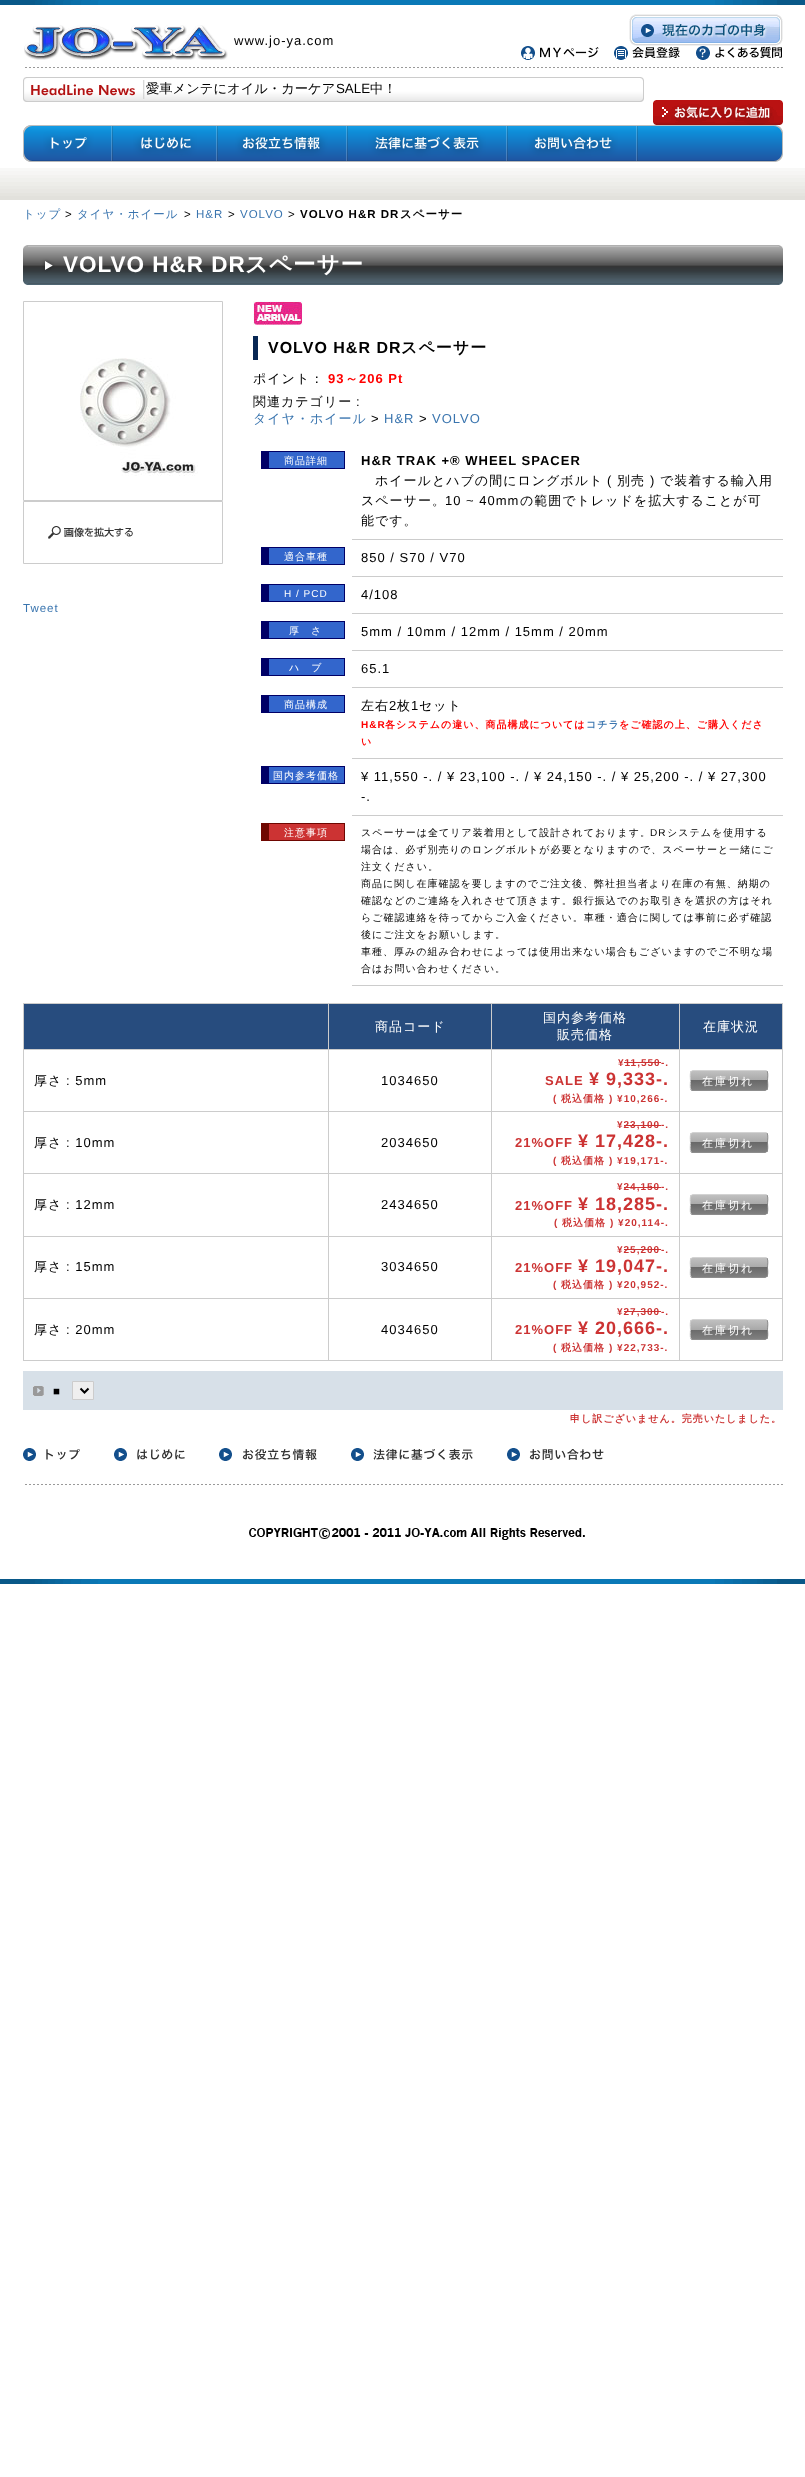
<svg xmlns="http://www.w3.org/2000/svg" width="805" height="2477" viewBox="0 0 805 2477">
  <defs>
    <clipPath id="clip1"><rect x="690" y="1070" width="78" height="21" rx="3"/></clipPath>
    <linearGradient id="g1" gradientUnits="userSpaceOnUse" x1="691" y1="1071" x2="691" y2="1090"><stop offset="0" stop-color="#c0c0c0"/><stop offset="0.5" stop-color="#a9a9a9"/><stop offset="0.5" stop-color="#696969"/><stop offset="1" stop-color="#808080"/></linearGradient>
    <clipPath id="clip2"><rect x="690" y="1132" width="78" height="21" rx="3"/></clipPath>
    <linearGradient id="g2" gradientUnits="userSpaceOnUse" x1="691" y1="1133" x2="691" y2="1152"><stop offset="0" stop-color="#c0c0c0"/><stop offset="0.5" stop-color="#a9a9a9"/><stop offset="0.5" stop-color="#696969"/><stop offset="1" stop-color="#808080"/></linearGradient>
    <clipPath id="clip3"><rect x="690" y="1194" width="78" height="21" rx="3"/></clipPath>
    <linearGradient id="g3" gradientUnits="userSpaceOnUse" x1="691" y1="1195" x2="691" y2="1214"><stop offset="0" stop-color="#c0c0c0"/><stop offset="0.5" stop-color="#a9a9a9"/><stop offset="0.5" stop-color="#696969"/><stop offset="1" stop-color="#808080"/></linearGradient>
    <clipPath id="clip4"><rect x="690" y="1257" width="78" height="21" rx="3"/></clipPath>
    <linearGradient id="g4" gradientUnits="userSpaceOnUse" x1="691" y1="1258" x2="691" y2="1277"><stop offset="0" stop-color="#c0c0c0"/><stop offset="0.5" stop-color="#a9a9a9"/><stop offset="0.5" stop-color="#696969"/><stop offset="1" stop-color="#808080"/></linearGradient>
    <clipPath id="clip5"><rect x="690" y="1319" width="78" height="21" rx="3"/></clipPath>
    <linearGradient id="g5" gradientUnits="userSpaceOnUse" x1="691" y1="1320" x2="691" y2="1339"><stop offset="0" stop-color="#c0c0c0"/><stop offset="0.5" stop-color="#a9a9a9"/><stop offset="0.5" stop-color="#696969"/><stop offset="1" stop-color="#808080"/></linearGradient>
  </defs>
  <rect width="100%" height="100%" fill="#fff"/>
  <image x="0" y="168" width="805" height="32" href="img/1.png"/>
  <path d="M0 0h805v5H0z" fill="#095888"/>
  <image x="30" y="0" width="747" height="5" href="img/2.png"/>
  <image x="25" y="67" width="758" height="1" href="img/3.png"/>
  <image x="24" y="25" width="204" height="35" href="img/4.png"/>
  <image x="629" y="14" width="154" height="32" href="img/5.png"/>
  <image x="521" y="46" width="78" height="14" href="img/6.png"/>
  <image x="614" y="46" width="66" height="14" href="img/7.png"/>
  <image x="696" y="46" width="86" height="14" href="img/8.png"/>
  <image x="23" y="77" width="621" height="25" href="img/9.png"/>
  <image x="31" y="84" width="104" height="12" href="img/10.png"/>
  <image x="653" y="100" width="130" height="25" href="img/11.png"/>
  <image x="23" y="125" width="760" height="37" href="img/12.png"/>
  <image x="23" y="125" width="7" height="37" href="img/13.png"/>
  <image x="23" y="245" width="760" height="40" href="img/14.png"/>
  <path d="M23.5 301.5h199v199H23.5z" fill="none" stroke="#ccc"/>
  <image x="80" y="358" width="118" height="118" href="img/15.png"/>
  <path d="M23.5 501.5h199v62H23.5z" fill="none" stroke="#ccc"/>
  <image x="48" y="526" width="85" height="13" href="img/16.png"/>
  <image x="253" y="301" width="50" height="24" href="img/17.png"/>
  <path d="M253 336h5v24H253z" fill="#082754"/>
  <path d="M269 452h75v16H269z" fill="#36c"/>
  <path d="M261 451h84v1H261z" fill="#006"/>
  <path d="M344 451h1v18H344z" fill="#006"/>
  <path d="M261 468h84v1H261z" fill="#006"/>
  <path d="M261 451h8v18H261z" fill="#006"/>
  <path d="M352 539h431v1H352z" fill="#ccc"/>
  <path d="M269 548h75v16H269z" fill="#36c"/>
  <path d="M261 547h84v1H261z" fill="#006"/>
  <path d="M344 547h1v18H344z" fill="#006"/>
  <path d="M261 564h84v1H261z" fill="#006"/>
  <path d="M261 547h8v18H261z" fill="#006"/>
  <path d="M352 576h431v1H352z" fill="#ccc"/>
  <path d="M269 585h75v16H269z" fill="#36c"/>
  <path d="M261 584h84v1H261z" fill="#006"/>
  <path d="M344 584h1v18H344z" fill="#006"/>
  <path d="M261 601h84v1H261z" fill="#006"/>
  <path d="M261 584h8v18H261z" fill="#006"/>
  <path d="M352 613h431v1H352z" fill="#ccc"/>
  <path d="M269 622h75v16H269z" fill="#36c"/>
  <path d="M261 621h84v1H261z" fill="#006"/>
  <path d="M344 621h1v18H344z" fill="#006"/>
  <path d="M261 638h84v1H261z" fill="#006"/>
  <path d="M261 621h8v18H261z" fill="#006"/>
  <path d="M352 650h431v1H352z" fill="#ccc"/>
  <path d="M269 659h75v16H269z" fill="#36c"/>
  <path d="M261 658h84v1H261z" fill="#006"/>
  <path d="M344 658h1v18H344z" fill="#006"/>
  <path d="M261 675h84v1H261z" fill="#006"/>
  <path d="M261 658h8v18H261z" fill="#006"/>
  <path d="M352 687h431v1H352z" fill="#ccc"/>
  <path d="M269 696h75v16H269z" fill="#36c"/>
  <path d="M261 695h84v1H261z" fill="#006"/>
  <path d="M344 695h1v18H344z" fill="#006"/>
  <path d="M261 712h84v1H261z" fill="#006"/>
  <path d="M261 695h8v18H261z" fill="#006"/>
  <path d="M352 758h431v1H352z" fill="#ccc"/>
  <path d="M269 767h75v16H269z" fill="#36c"/>
  <path d="M261 766h84v1H261z" fill="#006"/>
  <path d="M344 766h1v18H344z" fill="#006"/>
  <path d="M261 783h84v1H261z" fill="#006"/>
  <path d="M261 766h8v18H261z" fill="#006"/>
  <path d="M352 815h431v1H352z" fill="#ccc"/>
  <path d="M269 824h75v16H269z" fill="#c33"/>
  <path d="M261 823h84v1H261z" fill="#6f0701"/>
  <path d="M344 823h1v18H344z" fill="#6f0701"/>
  <path d="M261 840h84v1H261z" fill="#6f0701"/>
  <path d="M261 823h8v18H261z" fill="#6f0701"/>
  <path d="M352 985h431v1H352z" fill="#ccc"/>
  <path d="M23 1003h760v1H23z" fill="#ccc"/>
  <path d="M23 1003h1v358H23z" fill="#ccc"/>
  <path d="M24 1004h304v45H24z" fill="#274c7e"/>
  <path d="M329 1004h162v45H329z" fill="#274c7e"/>
  <path d="M679 1049h104v1H679z" fill="#ccc"/>
  <path d="M679 1111h104v1H679z" fill="#ccc"/>
  <path d="M679 1173h104v1H679z" fill="#ccc"/>
  <path d="M679 1236h104v1H679z" fill="#ccc"/>
  <path d="M679 1298h104v1H679z" fill="#ccc"/>
  <path d="M782 1298h1v63H782z" fill="#ccc"/>
  <path d="M679 1360h104v1H679z" fill="#ccc"/>
  <path d="M679 1298h1v63H679z" fill="#ccc"/>
  <path d="M491 1298h189v1H491z" fill="#ccc"/>
  <path d="M679 1236h1v63H679z" fill="#ccc"/>
  <path d="M491 1236h189v1H491z" fill="#ccc"/>
  <path d="M679 1173h1v64H679z" fill="#ccc"/>
  <path d="M491 1173h189v1H491z" fill="#ccc"/>
  <path d="M679 1111h1v63H679z" fill="#ccc"/>
  <path d="M491 1111h189v1H491z" fill="#ccc"/>
  <path d="M679 1049h1v63H679z" fill="#ccc"/>
  <path d="M491 1049h189v1H491z" fill="#ccc"/>
  <path d="M491 1360h189v1H491z" fill="#ccc"/>
  <path d="M491 1298h1v63H491z" fill="#ccc"/>
  <path d="M328 1298h164v1H328z" fill="#ccc"/>
  <path d="M491 1236h1v63H491z" fill="#ccc"/>
  <path d="M328 1236h164v1H328z" fill="#ccc"/>
  <path d="M491 1173h1v64H491z" fill="#ccc"/>
  <path d="M328 1173h164v1H328z" fill="#ccc"/>
  <path d="M491 1111h1v63H491z" fill="#ccc"/>
  <path d="M328 1111h164v1H328z" fill="#ccc"/>
  <path d="M491 1049h1v63H491z" fill="#ccc"/>
  <path d="M328 1049h164v1H328z" fill="#ccc"/>
  <path d="M328 1360h164v1H328z" fill="#ccc"/>
  <path d="M328 1298h1v63H328z" fill="#ccc"/>
  <path d="M23 1298h306v1H23z" fill="#ccc"/>
  <path d="M328 1236h1v63H328z" fill="#ccc"/>
  <path d="M23 1236h306v1H23z" fill="#ccc"/>
  <path d="M328 1173h1v64H328z" fill="#ccc"/>
  <path d="M23 1173h306v1H23z" fill="#ccc"/>
  <path d="M328 1111h1v63H328z" fill="#ccc"/>
  <path d="M23 1111h306v1H23z" fill="#ccc"/>
  <path d="M328 1049h1v63H328z" fill="#ccc"/>
  <path d="M23 1049h306v1H23z" fill="#ccc"/>
  <path d="M328 1003h1v47H328z" fill="#ccc"/>
  <path d="M492 1004h187v45H492z" fill="#274c7e"/>
  <path d="M491 1003h1v47H491z" fill="#ccc"/>
  <path d="M680 1004h102v45H680z" fill="#274c7e"/>
  <path d="M679 1003h1v47H679z" fill="#ccc"/>
  <path d="M624 1062h37v1H624z" fill="#c33"/>
  <path d="M782 1236h1v63H782z" fill="#ccc"/>
  <path d="M782 1173h1v64H782z" fill="#ccc"/>
  <path d="M782 1111h1v63H782z" fill="#ccc"/>
  <path d="M782 1003h1v109H782z" fill="#ccc"/>
  <g clip-path="url(#clip1)">
    <path d="M690 1071h78v19H690z" fill="url(#g1)"/>
  </g>
  <path d="M767 1071C768.5 1073 767.5 1078.5 767.5 1080.5C767.5 1082.5 769 1090.5 765 1090.5H692L691 1090" fill="none" stroke="#8d8d8d"/>
  <path d="M691 1090C689.5 1088 690.5 1082.5 690.5 1080.5C690.5 1078.5 689 1070.5 693 1070.5H766L767 1071" fill="none" stroke="#d3d3d3"/>
  <path d="M624 1125h37v1H624z" fill="#c33"/>
  <g clip-path="url(#clip2)">
    <path d="M690 1133h78v19H690z" fill="url(#g2)"/>
  </g>
  <path d="M767 1133C768.5 1135 767.5 1140.5 767.5 1142.5C767.5 1144.5 769 1152.5 765 1152.5H692L691 1152" fill="none" stroke="#8d8d8d"/>
  <path d="M691 1152C689.5 1150 690.5 1144.5 690.5 1142.5C690.5 1140.5 689 1132.5 693 1132.5H766L767 1133" fill="none" stroke="#d3d3d3"/>
  <path d="M624 1187h37v1H624z" fill="#c33"/>
  <g clip-path="url(#clip3)">
    <path d="M690 1195h78v19H690z" fill="url(#g3)"/>
  </g>
  <path d="M767 1195C768.5 1197 767.5 1202.5 767.5 1204.5C767.5 1206.5 769 1214.5 765 1214.5H692L691 1214" fill="none" stroke="#8d8d8d"/>
  <path d="M691 1214C689.5 1212 690.5 1206.5 690.5 1204.5C690.5 1202.5 689 1194.5 693 1194.5H766L767 1195" fill="none" stroke="#d3d3d3"/>
  <path d="M624 1249h37v1H624z" fill="#c33"/>
  <g clip-path="url(#clip4)">
    <path d="M690 1258h78v19H690z" fill="url(#g4)"/>
  </g>
  <path d="M767 1258C768.5 1260 767.5 1265.5 767.5 1267.5C767.5 1269.5 769 1277.5 765 1277.5H692L691 1277" fill="none" stroke="#8d8d8d"/>
  <path d="M691 1277C689.5 1275 690.5 1269.5 690.5 1267.5C690.5 1265.5 689 1257.5 693 1257.5H766L767 1258" fill="none" stroke="#d3d3d3"/>
  <path d="M23 1360h306v1H23z" fill="#ccc"/>
  <path d="M624 1311h37v1H624z" fill="#c33"/>
  <g clip-path="url(#clip5)">
    <path d="M690 1320h78v19H690z" fill="url(#g5)"/>
  </g>
  <path d="M767 1320C768.5 1322 767.5 1327.5 767.5 1329.5C767.5 1331.5 769 1339.5 765 1339.5H692L691 1339" fill="none" stroke="#8d8d8d"/>
  <path d="M691 1339C689.5 1337 690.5 1331.5 690.5 1329.5C690.5 1327.5 689 1319.5 693 1319.5H766L767 1320" fill="none" stroke="#d3d3d3"/>
  <path d="M23 1371h760v39H23z" fill="#d7e0e8"/>
  <image x="33" y="1386" width="11" height="10" href="img/18.png"/>
  <path d="M72.5 1381.5h21v18H72.5z" fill="#efefef" stroke="#ccc"/>
  <path d="M80.5 1388.5L84.5 1392.5L88.5 1388.5" fill="none" stroke="#000" stroke-width="2"/>
  <image x="25" y="1484" width="758" height="1" href="img/3.png"/>
  <image x="23" y="1448" width="57" height="13" href="img/19.png"/>
  <image x="114" y="1448" width="71" height="13" href="img/20.png"/>
  <image x="219" y="1448" width="98" height="13" href="img/21.png"/>
  <image x="351" y="1448" width="122" height="13" href="img/22.png"/>
  <image x="507" y="1448" width="97" height="13" href="img/23.png"/>
  <image x="249" y="1528" width="336" height="12" href="img/24.png"/>
  <path d="M0 1579h805v5H0z" fill="#095888"/>
  <image x="30" y="1579" width="747" height="5" href="img/2.png"/>
  <text x="234" y="45" font-family="Liberation Sans" font-size="13" letter-spacing="1" fill="#000">www.jo-ya.com</text>
  <text x="146" y="93" font-family="WenQuanYi Zen Hei" font-size="13.3" font-weight="500" fill="#000">愛車メンテにオイル・カーケア</text>
  <text x="336" y="93" font-family="Liberation Sans" font-size="13.3" fill="#000">SALE</text>
  <text x="370" y="93" font-family="WenQuanYi Zen Hei" font-size="13.3" font-weight="500" fill="#000">中！</text>
  <text x="23" y="218" font-family="WenQuanYi Zen Hei" font-size="11.5" font-weight="500" letter-spacing="1" fill="#3a75af">トップ</text>
  <text x="65" y="218" font-family="Liberation Sans" font-size="11.5" letter-spacing="1" fill="#000">&gt;</text>
  <text x="77" y="218" font-family="WenQuanYi Zen Hei" font-size="11.5" font-weight="500" letter-spacing="1" fill="#3a75af">タイヤ・ホイール</text>
  <text x="184" y="218" font-family="Liberation Sans" font-size="11.5" letter-spacing="1" fill="#000">&gt;</text>
  <text x="196" y="218" font-family="Liberation Sans" font-size="11.5" letter-spacing="1" fill="#3a75af">H&amp;R</text>
  <text x="228" y="218" font-family="Liberation Sans" font-size="11.5" letter-spacing="1" fill="#000">&gt;</text>
  <text x="240" y="218" font-family="Liberation Sans" font-size="11.5" letter-spacing="1" fill="#3a75af">VOLVO</text>
  <text x="288" y="218" font-family="Liberation Sans" font-size="11.5" letter-spacing="1" fill="#000">&gt;</text>
  <text x="300" y="218" font-family="Liberation Sans" font-size="11.5" font-weight="bold" letter-spacing="1" fill="#000">VOLVO H&amp;R DR</text>
  <text x="400" y="218" font-family="WenQuanYi Zen Hei" font-size="11.5" font-weight="bold" letter-spacing="1" fill="#000">スペーサー</text>
  <text x="63" y="272" font-family="Liberation Sans" font-size="22.5" font-weight="bold" letter-spacing="1" fill="#fff">VOLVO H&amp;R DR</text>
  <text x="245" y="272" font-family="WenQuanYi Zen Hei" font-size="22.5" font-weight="bold" letter-spacing="1" fill="#fff">スペーサー</text>
  <text x="23" y="612" font-family="Liberation Sans" font-size="11.5" letter-spacing="1" fill="#3a75af">Tweet</text>
  <text x="268" y="353" font-family="Liberation Sans" font-size="16" font-weight="bold" letter-spacing="1" fill="#000">VOLVO H&amp;R DR</text>
  <text x="401" y="353" font-family="WenQuanYi Zen Hei" font-size="16" font-weight="bold" letter-spacing="1" fill="#000">スペーサー</text>
  <text x="253" y="383" font-family="WenQuanYi Zen Hei" font-size="13" font-weight="500" letter-spacing="1" fill="#000">ポイント：</text>
  <text x="328" y="383" font-family="Liberation Sans" font-size="13" font-weight="bold" letter-spacing="1" fill="#f00">93</text>
  <text x="345" y="383" font-family="WenQuanYi Zen Hei" font-size="13" font-weight="bold" letter-spacing="1" fill="#f00">～</text>
  <text x="359" y="383" font-family="Liberation Sans" font-size="13" font-weight="bold" letter-spacing="1" fill="#f00">206 Pt</text>
  <text x="253" y="406" font-family="WenQuanYi Zen Hei" font-size="13" font-weight="500" letter-spacing="1" fill="#000">関連カテゴリー</text>
  <text x="356" y="406" font-family="Liberation Sans" font-size="13" letter-spacing="1" fill="#000">:</text>
  <text x="253" y="423" font-family="WenQuanYi Zen Hei" font-size="13" font-weight="500" letter-spacing="1" fill="#3a75af">タイヤ・ホイール</text>
  <text x="371" y="423" font-family="Liberation Sans" font-size="13" letter-spacing="1" fill="#000">&gt;</text>
  <text x="384" y="423" font-family="Liberation Sans" font-size="13" letter-spacing="1" fill="#3a75af">H&amp;R</text>
  <text x="419" y="423" font-family="Liberation Sans" font-size="13" letter-spacing="1" fill="#000">&gt;</text>
  <text x="432" y="423" font-family="Liberation Sans" font-size="13" letter-spacing="1" fill="#3a75af">VOLVO</text>
  <text x="284" y="464" font-family="WenQuanYi Zen Hei" font-size="10" font-weight="500" letter-spacing="1" fill="#fff">商品詳細</text>
  <text x="361" y="465" font-family="Liberation Sans" font-size="13" font-weight="bold" letter-spacing="1" fill="#000">H&amp;R TRAK +® WHEEL SPACER</text>
  <text x="375" y="485" font-family="WenQuanYi Zen Hei" font-size="13" font-weight="500" letter-spacing="1" fill="#000">ホイールとハブの間にロングボルト</text>
  <text x="607" y="485" font-family="Liberation Sans" font-size="13" letter-spacing="1" fill="#000">(</text>
  <text x="617" y="485" font-family="WenQuanYi Zen Hei" font-size="13" font-weight="500" letter-spacing="1" fill="#000">別売</text>
  <text x="650" y="485" font-family="Liberation Sans" font-size="13" letter-spacing="1" fill="#000">)</text>
  <g font-family="WenQuanYi Zen Hei" font-size="13" font-weight="500" letter-spacing="1" fill="#000">
    <text x="660" y="485">で装着する輸入用</text>
    <text x="361" y="505">スペーサー。</text>
  </g>
  <text x="445" y="505" font-family="Liberation Sans" font-size="13" letter-spacing="1" fill="#000">10 ~ 40mm</text>
  <g font-family="WenQuanYi Zen Hei" font-size="13" font-weight="500" letter-spacing="1" fill="#000">
    <text x="520" y="505">の範囲でトレッドを拡大することが可</text>
    <text x="361" y="525">能です。</text>
  </g>
  <text x="284" y="560" font-family="WenQuanYi Zen Hei" font-size="10" font-weight="500" letter-spacing="1" fill="#fff">適合車種</text>
  <text x="361" y="562" font-family="Liberation Sans" font-size="13" letter-spacing="1" fill="#000">850 / S70 / V70</text>
  <text x="284" y="597" font-family="Liberation Sans" font-size="10" letter-spacing="1" fill="#fff">H / PCD</text>
  <text x="361" y="599" font-family="Liberation Sans" font-size="13" letter-spacing="1" fill="#000">4/108</text>
  <text x="289" y="634" font-family="WenQuanYi Zen Hei" font-size="10" font-weight="500" letter-spacing="1" fill="#fff">厚　さ</text>
  <text x="361" y="636" font-family="Liberation Sans" font-size="13" letter-spacing="1" fill="#000">5mm / 10mm / 12mm / 15mm / 20mm</text>
  <text x="289" y="671" font-family="WenQuanYi Zen Hei" font-size="10" font-weight="500" letter-spacing="1" fill="#fff">ハ　ブ</text>
  <text x="361" y="673" font-family="Liberation Sans" font-size="13" letter-spacing="1" fill="#000">65.1</text>
  <text x="284" y="708" font-family="WenQuanYi Zen Hei" font-size="10" font-weight="500" letter-spacing="1" fill="#fff">商品構成</text>
  <text x="361" y="710" font-family="WenQuanYi Zen Hei" font-size="13" font-weight="500" letter-spacing="1" fill="#000">左右</text>
  <text x="389" y="710" font-family="Liberation Sans" font-size="13" letter-spacing="1" fill="#000">2</text>
  <text x="397" y="710" font-family="WenQuanYi Zen Hei" font-size="13" font-weight="500" letter-spacing="1" fill="#000">枚</text>
  <text x="411" y="710" font-family="Liberation Sans" font-size="13" letter-spacing="1" fill="#000">1</text>
  <text x="419" y="710" font-family="WenQuanYi Zen Hei" font-size="13" font-weight="500" letter-spacing="1" fill="#000">セット</text>
  <text x="361" y="728" font-family="Liberation Sans" font-size="10" font-weight="bold" letter-spacing="1" fill="#f00">H&amp;R</text>
  <text x="385" y="728" font-family="WenQuanYi Zen Hei" font-size="10" font-weight="bold" letter-spacing="1" fill="#f00">各システムの違い、商品構成については</text>
  <text x="586" y="728" font-family="WenQuanYi Zen Hei" font-size="10" font-weight="bold" letter-spacing="1" fill="#3a75af">コチラ</text>
  <g font-family="WenQuanYi Zen Hei" font-size="10" font-weight="bold" letter-spacing="1" fill="#f00">
    <text x="619" y="728">をご確認の上、ご購入くださ</text>
    <text x="361" y="745">い</text>
  </g>
  <text x="273" y="779" font-family="WenQuanYi Zen Hei" font-size="10" font-weight="500" letter-spacing="1" fill="#fff">国内参考価格</text>
  <g font-family="Liberation Sans" font-size="13" letter-spacing="1" fill="#000">
    <text x="361" y="781">¥ 11,550 -. / ¥ 23,100 -. / ¥ 24,150 -. / ¥ 25,200 -. / ¥ 27,300</text>
    <text x="361" y="801">-.</text>
  </g>
  <text x="284" y="836" font-family="WenQuanYi Zen Hei" font-size="10" font-weight="500" letter-spacing="1" fill="#fff">注意事項</text>
  <text x="361" y="836" font-family="WenQuanYi Zen Hei" font-size="10" font-weight="500" letter-spacing="1" fill="#000">スペーサーは全てリア装着用として設計されております。</text>
  <text x="650" y="836" font-family="Liberation Sans" font-size="10" letter-spacing="1" fill="#000">DR</text>
  <g font-family="WenQuanYi Zen Hei" font-size="10" font-weight="500" letter-spacing="1" fill="#000">
    <text x="667" y="836">システムを使用する</text>
    <text x="361" y="853">場合は、必ず別売りのロングボルトが必要となりますので、スペーサーと一緒にご</text>
    <text x="361" y="870">注文ください。</text>
    <text x="361" y="887">商品に関し在庫確認を要しますのでご注文後、弊社担当者より在庫の有無、納期の</text>
    <text x="361" y="904">確認などのご連絡を入れさせて頂きます。銀行振込でのお取引きを選択の方はそれ</text>
    <text x="361" y="921">らご確認連絡を待ってからご入金ください。車種・適合に関しては事前に必ず確認</text>
    <text x="361" y="938">後にご注文をお願いします。</text>
    <text x="361" y="955">車種、厚みの組み合わせによっては使用出来ない場合もございますのでご不明な場</text>
    <text x="361" y="972">合はお問い合わせください。</text>
  </g>
  <g font-family="WenQuanYi Zen Hei" font-size="13" font-weight="500" letter-spacing="1" fill="#fff">
    <text x="375" y="1031">商品コード</text>
    <text x="543" y="1022">国内参考価格</text>
    <text x="557" y="1039">販売価格</text>
    <text x="703" y="1031">在庫状況</text>
  </g>
  <text x="34" y="1085" font-family="WenQuanYi Zen Hei" font-size="13" font-weight="500" letter-spacing="1" fill="#000">厚さ</text>
  <g font-family="Liberation Sans" font-size="13" letter-spacing="1" fill="#000">
    <text x="66" y="1085">: 5mm</text>
    <text x="381" y="1085">1034650</text>
  </g>
  <g font-family="Liberation Sans" font-size="10" font-weight="bold" letter-spacing="1" fill="#c33">
    <text x="618" y="1066">¥11,550</text>
    <text x="661" y="1066">-.</text>
  </g>
  <text x="545" y="1085" font-family="Liberation Sans" font-size="13" font-weight="bold" letter-spacing="1" fill="#c33">SALE</text>
  <text x="589" y="1085" font-family="Liberation Sans" font-size="18" font-weight="bold" letter-spacing="1" fill="#c33">¥ 9,333-.</text>
  <text x="553" y="1102" font-family="Liberation Sans" font-size="10" font-weight="bold" letter-spacing="1" fill="#c33">(</text>
  <text x="561" y="1102" font-family="WenQuanYi Zen Hei" font-size="10" font-weight="bold" letter-spacing="1" fill="#c33">税込価格</text>
  <text x="609" y="1102" font-family="Liberation Sans" font-size="10" font-weight="bold" letter-spacing="1" fill="#c33">) ¥10,266-.</text>
  <text x="702" y="1085" font-family="WenQuanYi Zen Hei" font-size="11" font-weight="500" letter-spacing="2" fill="#fff">在庫切れ</text>
  <text x="34" y="1147" font-family="WenQuanYi Zen Hei" font-size="13" font-weight="500" letter-spacing="1" fill="#000">厚さ</text>
  <g font-family="Liberation Sans" font-size="13" letter-spacing="1" fill="#000">
    <text x="66" y="1147">: 10mm</text>
    <text x="381" y="1147">2034650</text>
  </g>
  <g font-family="Liberation Sans" font-size="10" font-weight="bold" letter-spacing="1" fill="#c33">
    <text x="617" y="1128">¥23,100</text>
    <text x="661" y="1128">-.</text>
  </g>
  <text x="515" y="1147" font-family="Liberation Sans" font-size="13" font-weight="bold" letter-spacing="1" fill="#c33">21%OFF</text>
  <text x="578" y="1147" font-family="Liberation Sans" font-size="18" font-weight="bold" letter-spacing="1" fill="#c33">¥ 17,428-.</text>
  <text x="553" y="1164" font-family="Liberation Sans" font-size="10" font-weight="bold" letter-spacing="1" fill="#c33">(</text>
  <text x="561" y="1164" font-family="WenQuanYi Zen Hei" font-size="10" font-weight="bold" letter-spacing="1" fill="#c33">税込価格</text>
  <text x="609" y="1164" font-family="Liberation Sans" font-size="10" font-weight="bold" letter-spacing="1" fill="#c33">) ¥19,171-.</text>
  <text x="702" y="1147" font-family="WenQuanYi Zen Hei" font-size="11" font-weight="500" letter-spacing="2" fill="#fff">在庫切れ</text>
  <text x="34" y="1209" font-family="WenQuanYi Zen Hei" font-size="13" font-weight="500" letter-spacing="1" fill="#000">厚さ</text>
  <g font-family="Liberation Sans" font-size="13" letter-spacing="1" fill="#000">
    <text x="66" y="1209">: 12mm</text>
    <text x="381" y="1209">2434650</text>
  </g>
  <g font-family="Liberation Sans" font-size="10" font-weight="bold" letter-spacing="1" fill="#c33">
    <text x="617" y="1190">¥24,150</text>
    <text x="661" y="1190">-.</text>
  </g>
  <text x="515" y="1210" font-family="Liberation Sans" font-size="13" font-weight="bold" letter-spacing="1" fill="#c33">21%OFF</text>
  <text x="578" y="1210" font-family="Liberation Sans" font-size="18" font-weight="bold" letter-spacing="1" fill="#c33">¥ 18,285-.</text>
  <text x="554" y="1226" font-family="Liberation Sans" font-size="10" font-weight="bold" letter-spacing="1" fill="#c33">(</text>
  <text x="562" y="1226" font-family="WenQuanYi Zen Hei" font-size="10" font-weight="bold" letter-spacing="1" fill="#c33">税込価格</text>
  <text x="610" y="1226" font-family="Liberation Sans" font-size="10" font-weight="bold" letter-spacing="1" fill="#c33">) ¥20,114-.</text>
  <text x="702" y="1209" font-family="WenQuanYi Zen Hei" font-size="11" font-weight="500" letter-spacing="2" fill="#fff">在庫切れ</text>
  <text x="34" y="1271" font-family="WenQuanYi Zen Hei" font-size="13" font-weight="500" letter-spacing="1" fill="#000">厚さ</text>
  <g font-family="Liberation Sans" font-size="13" letter-spacing="1" fill="#000">
    <text x="66" y="1271">: 15mm</text>
    <text x="381" y="1271">3034650</text>
  </g>
  <g font-family="Liberation Sans" font-size="10" font-weight="bold" letter-spacing="1" fill="#c33">
    <text x="617" y="1253">¥25,200</text>
    <text x="661" y="1253">-.</text>
  </g>
  <text x="515" y="1272" font-family="Liberation Sans" font-size="13" font-weight="bold" letter-spacing="1" fill="#c33">21%OFF</text>
  <text x="578" y="1272" font-family="Liberation Sans" font-size="18" font-weight="bold" letter-spacing="1" fill="#c33">¥ 19,047-.</text>
  <text x="553" y="1288" font-family="Liberation Sans" font-size="10" font-weight="bold" letter-spacing="1" fill="#c33">(</text>
  <text x="561" y="1288" font-family="WenQuanYi Zen Hei" font-size="10" font-weight="bold" letter-spacing="1" fill="#c33">税込価格</text>
  <text x="609" y="1288" font-family="Liberation Sans" font-size="10" font-weight="bold" letter-spacing="1" fill="#c33">) ¥20,952-.</text>
  <text x="702" y="1272" font-family="WenQuanYi Zen Hei" font-size="11" font-weight="500" letter-spacing="2" fill="#fff">在庫切れ</text>
  <text x="34" y="1334" font-family="WenQuanYi Zen Hei" font-size="13" font-weight="500" letter-spacing="1" fill="#000">厚さ</text>
  <g font-family="Liberation Sans" font-size="13" letter-spacing="1" fill="#000">
    <text x="66" y="1334">: 20mm</text>
    <text x="381" y="1334">4034650</text>
  </g>
  <g font-family="Liberation Sans" font-size="10" font-weight="bold" letter-spacing="1" fill="#c33">
    <text x="617" y="1315">¥27,300</text>
    <text x="661" y="1315">-.</text>
  </g>
  <text x="515" y="1334" font-family="Liberation Sans" font-size="13" font-weight="bold" letter-spacing="1" fill="#c33">21%OFF</text>
  <text x="578" y="1334" font-family="Liberation Sans" font-size="18" font-weight="bold" letter-spacing="1" fill="#c33">¥ 20,666-.</text>
  <text x="553" y="1351" font-family="Liberation Sans" font-size="10" font-weight="bold" letter-spacing="1" fill="#c33">(</text>
  <text x="561" y="1351" font-family="WenQuanYi Zen Hei" font-size="10" font-weight="bold" letter-spacing="1" fill="#c33">税込価格</text>
  <text x="609" y="1351" font-family="Liberation Sans" font-size="10" font-weight="bold" letter-spacing="1" fill="#c33">) ¥22,733-.</text>
  <text x="702" y="1334" font-family="WenQuanYi Zen Hei" font-size="11" font-weight="500" letter-spacing="2" fill="#fff">在庫切れ</text>
  <text x="53" y="1395" font-family="Liberation Sans" font-size="11.5" font-weight="bold" letter-spacing="1" fill="#000">■</text>
  <text x="570" y="1422" font-family="WenQuanYi Zen Hei" font-size="10" font-weight="bold" letter-spacing="1" fill="#c33">申し訳ございません。完売いたしました。</text>
</svg>
